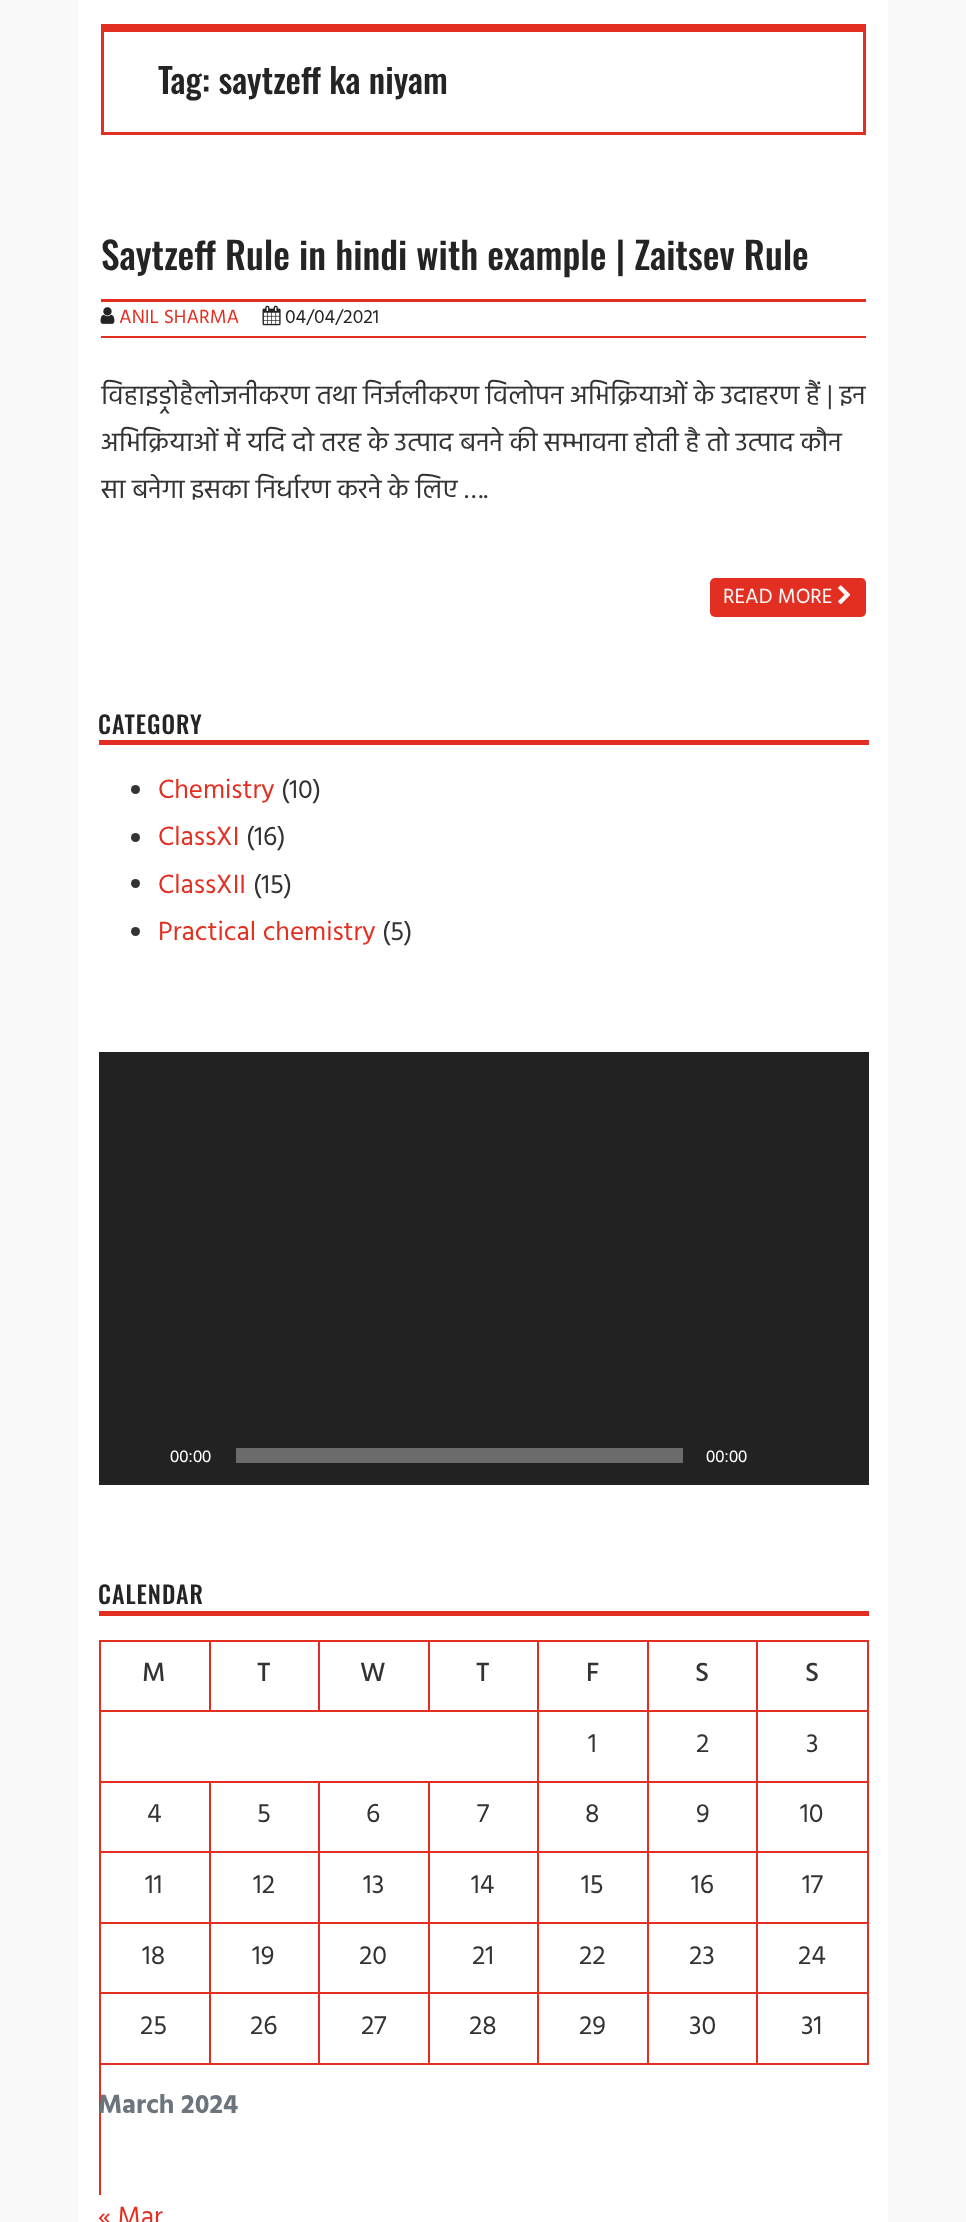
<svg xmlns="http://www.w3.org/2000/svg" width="966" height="2222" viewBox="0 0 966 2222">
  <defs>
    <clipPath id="clip1"><path d="M101 374h765v189H101z"/></clipPath>
  </defs>
  <rect width="100%" height="100%" fill="#f9f9f9"/>
  <path d="M78 0h810v2222H78z" fill="#fff"/>
  <path d="M101 24h765v8H101z" fill="#e32f21"/>
  <path d="M863 24h3v111H863z" fill="#e32f21"/>
  <path d="M101 132h765v3H101z" fill="#e32f21"/>
  <path d="M101 24h3v111H101z" fill="#e32f21"/>
  <path d="M101 299h765v3H101z" fill="#e32f21"/>
  <path d="M101 336h765v2H101z" fill="#e32f21"/>
  <image x="100" y="307" width="15" height="17" href="img/1.png"/>
  <image x="262" y="305" width="19" height="21" href="img/2.png"/>
  <rect x="710" y="578" width="156" height="39" rx="5" fill="#e32f21"/>
  <image x="838" y="585" width="13" height="20" href="img/3.png"/>
  <path d="M99 740h770v5H99z" fill="#e32f21"/>
  <circle cx="135.5" cy="789.5" r="4.5" fill="#333"/>
  <circle cx="135.5" cy="837.5" r="4.5" fill="#333"/>
  <circle cx="135.5" cy="883.5" r="4.5" fill="#333"/>
  <circle cx="135.5" cy="931.5" r="4.5" fill="#333"/>
  <path d="M99 1052h770v433H99z" fill="#222"/>
  <path d="M236 1448h447v15H236z" fill="#6b6b6b"/>
  <path d="M99 1611h770v5H99z" fill="#e32f21"/>
  <path d="M99 1640h770v2H99z" fill="#e32f21"/>
  <path d="M99 1640h2v555H99z" fill="#e32f21"/>
  <path d="M209 1641h2v71H209z" fill="#e32f21"/>
  <path d="M101 1710h109v2H101z" fill="#e32f21"/>
  <path d="M318 1641h2v71H318z" fill="#e32f21"/>
  <path d="M210 1710h110v2H210z" fill="#e32f21"/>
  <path d="M428 1641h2v71H428z" fill="#e32f21"/>
  <path d="M320 1710h109v2H320z" fill="#e32f21"/>
  <path d="M537 1641h2v141H537z" fill="#e32f21"/>
  <path d="M429 1710h110v2H429z" fill="#e32f21"/>
  <path d="M647 1641h2v141H647z" fill="#e32f21"/>
  <path d="M539 1710h109v2H539z" fill="#e32f21"/>
  <path d="M756 1641h2v141H756z" fill="#e32f21"/>
  <path d="M648 1710h110v2H648z" fill="#e32f21"/>
  <path d="M867 1641h2v141H867z" fill="#e32f21"/>
  <path d="M758 1710h111v2H758z" fill="#e32f21"/>
  <path d="M101 1781h768v2H101z" fill="#e32f21"/>
  <path d="M209 1782h2v141H209z" fill="#e32f21"/>
  <path d="M101 1851h109v2H101z" fill="#e32f21"/>
  <path d="M318 1782h2v141H318z" fill="#e32f21"/>
  <path d="M210 1851h110v2H210z" fill="#e32f21"/>
  <path d="M428 1782h2v141H428z" fill="#e32f21"/>
  <path d="M320 1851h109v2H320z" fill="#e32f21"/>
  <path d="M537 1782h2v141H537z" fill="#e32f21"/>
  <path d="M429 1851h110v2H429z" fill="#e32f21"/>
  <path d="M647 1782h2v141H647z" fill="#e32f21"/>
  <path d="M539 1851h109v2H539z" fill="#e32f21"/>
  <path d="M756 1782h2v141H756z" fill="#e32f21"/>
  <path d="M648 1851h110v2H648z" fill="#e32f21"/>
  <path d="M867 1782h2v141H867z" fill="#e32f21"/>
  <path d="M758 1851h111v2H758z" fill="#e32f21"/>
  <path d="M101 1922h768v2H101z" fill="#e32f21"/>
  <path d="M209 1923h2v141H209z" fill="#e32f21"/>
  <path d="M101 1992h109v2H101z" fill="#e32f21"/>
  <path d="M318 1923h2v141H318z" fill="#e32f21"/>
  <path d="M210 1992h110v2H210z" fill="#e32f21"/>
  <path d="M428 1923h2v141H428z" fill="#e32f21"/>
  <path d="M320 1992h109v2H320z" fill="#e32f21"/>
  <path d="M537 1923h2v141H537z" fill="#e32f21"/>
  <path d="M429 1992h110v2H429z" fill="#e32f21"/>
  <path d="M647 1923h2v141H647z" fill="#e32f21"/>
  <path d="M539 1992h109v2H539z" fill="#e32f21"/>
  <path d="M756 1923h2v141H756z" fill="#e32f21"/>
  <path d="M648 1992h110v2H648z" fill="#e32f21"/>
  <path d="M867 1923h2v141H867z" fill="#e32f21"/>
  <path d="M758 1992h111v2H758z" fill="#e32f21"/>
  <path d="M101 2063h768v2H101z" fill="#e32f21"/>
  <text x="158" y="94" font-family="Oswald" font-size="34.5" font-weight="500" fill="#242424">Tag: saytzeff ka niyam</text>
  <text x="101" y="270" font-family="Oswald" font-size="37.5" font-weight="500" fill="#242424">Saytzeff Rule in hindi with example | Zaitsev Rule</text>
  <text x="119" y="323" font-family="Hind" font-size="19.5" fill="#e32f21">ANIL SHARMA</text>
  <text x="285" y="323" font-family="Hind" font-size="19.5" fill="#242424">04/04/2021</text>
  <g clip-path="url(#clip1)">
    <text x="101" y="404" font-family="Hind" font-size="27" fill="#333">विहाइड़्रोहैलोजनीकरण तथा निर्जलीकरण विलोपन अभिक्रियाओं के उदाहरण हैं | इन</text>
  </g>
  <text x="101" y="451" font-family="Hind" font-size="27" fill="#333">अभिक्रियाओं में यदि दो तरह के उत्पाद बनने की सम्भावना होती है तो उत्पाद कौन</text>
  <g clip-path="url(#clip1)">
    <text x="101" y="498" font-family="Hind" font-size="27" fill="#333">सा बनेगा इसका निर्धारण करने के लिए ….</text>
  </g>
  <text x="723" y="603" font-family="Hind" font-size="21" fill="#f9f9f9">READ MORE</text>
  <text x="98" y="734" font-family="Oswald" font-size="24" font-weight="500" letter-spacing="1" fill="#242424">CATEGORY</text>
  <text x="158" y="798" font-family="Hind" font-size="27" fill="#e32f21">Chemistry</text>
  <text x="281" y="798" font-family="Hind" font-size="27" fill="#333">(10)</text>
  <text x="158" y="845" font-family="Hind" font-size="27" fill="#e32f21">ClassXI</text>
  <text x="246" y="845" font-family="Hind" font-size="27" fill="#333">(16)</text>
  <text x="158" y="893" font-family="Hind" font-size="27" fill="#e32f21">ClassXII</text>
  <text x="253" y="893" font-family="Hind" font-size="27" fill="#333">(15)</text>
  <text x="158" y="940" font-family="Hind" font-size="27" fill="#e32f21">Practical chemistry</text>
  <text x="382" y="940" font-family="Hind" font-size="27" fill="#333">(5)</text>
  <g font-family="Liberation Sans" font-size="16.5" fill="#fff">
    <text x="170" y="1462">00:00</text>
    <text x="706" y="1462">00:00</text>
  </g>
  <text x="98" y="1604" font-family="Oswald" font-size="24" font-weight="500" letter-spacing="1" fill="#242424">CALENDAR</text>
  <g font-family="Hind" font-size="27" font-weight="500" fill="#333">
    <text x="142" y="1681">M</text>
    <text x="257" y="1681">T</text>
    <text x="360" y="1681">W</text>
    <text x="476" y="1681">T</text>
    <text x="586" y="1681">F</text>
    <text x="695" y="1681">S</text>
    <text x="805" y="1681">S</text>
  </g>
  <g font-family="Hind" font-size="27" fill="#333">
    <text x="588" y="1752">1</text>
    <text x="696" y="1752">2</text>
    <text x="806" y="1752">3</text>
    <text x="147" y="1822">4</text>
    <text x="257" y="1822">5</text>
    <text x="366" y="1822">6</text>
    <text x="477" y="1822">7</text>
    <text x="585" y="1822">8</text>
    <text x="696" y="1822">9</text>
    <text x="800" y="1822">10</text>
    <text x="145" y="1893">11</text>
    <text x="253" y="1893">12</text>
    <text x="363" y="1893">13</text>
    <text x="471" y="1893">14</text>
    <text x="581" y="1893">15</text>
    <text x="691" y="1893">16</text>
    <text x="802" y="1893">17</text>
    <text x="142" y="1964">18</text>
    <text x="252" y="1964">19</text>
    <text x="359" y="1964">20</text>
    <text x="472" y="1964">21</text>
    <text x="579" y="1964">22</text>
    <text x="689" y="1964">23</text>
    <text x="798" y="1964">24</text>
    <text x="140" y="2034">25</text>
    <text x="250" y="2034">26</text>
    <text x="361" y="2034">27</text>
    <text x="469" y="2034">28</text>
    <text x="579" y="2034">29</text>
    <text x="689" y="2034">30</text>
    <text x="801" y="2034">31</text>
  </g>
  <text x="98" y="2113" font-family="Hind" font-size="27" font-weight="bold" fill="#6c757d">March 2024</text>
  <text x="98" y="2225" font-family="Hind" font-size="27" fill="#e32f21">« Mar</text>
</svg>
